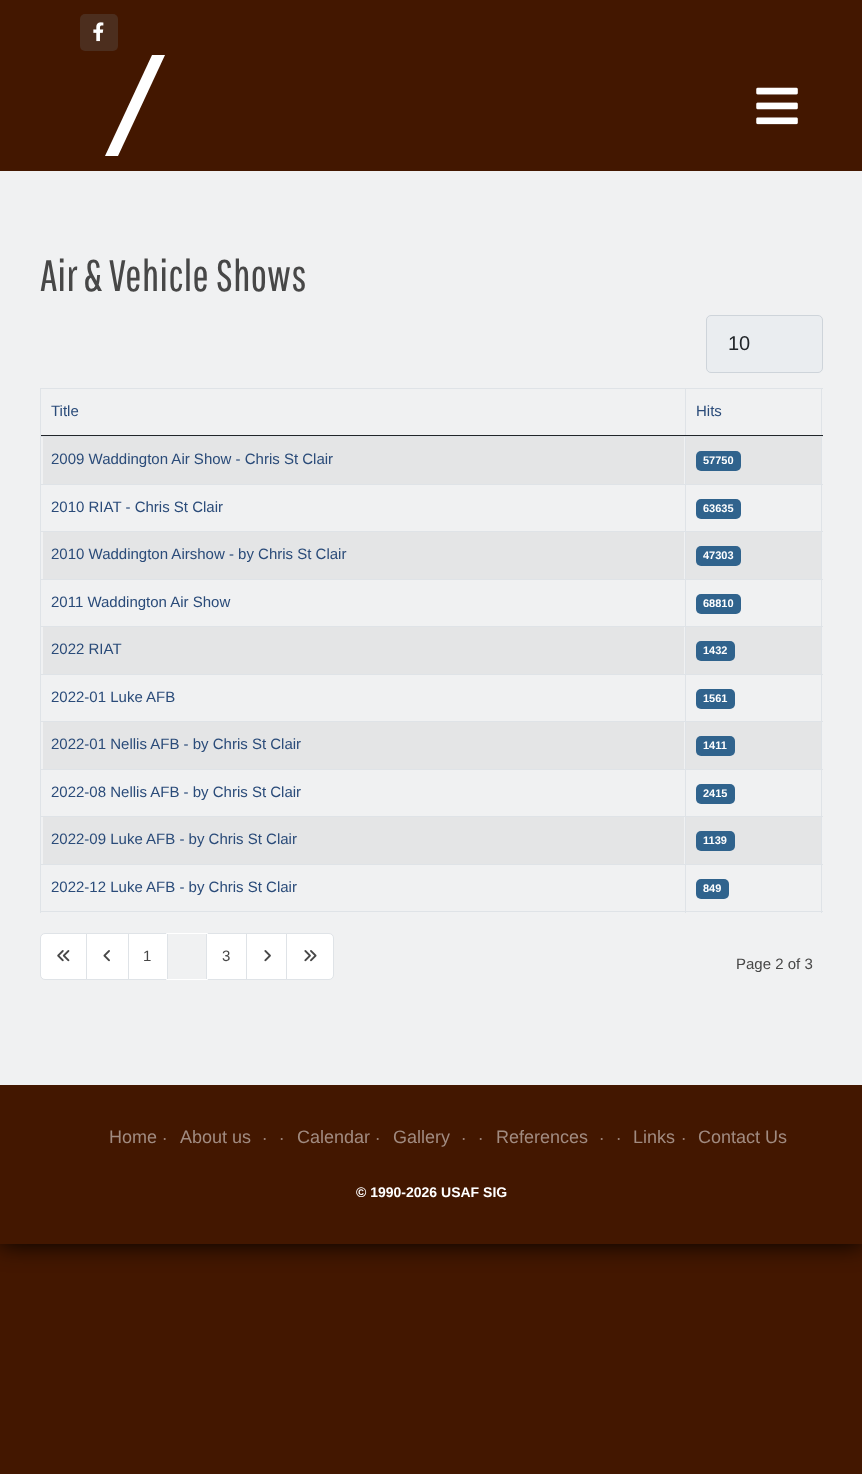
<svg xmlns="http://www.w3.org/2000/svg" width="862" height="1474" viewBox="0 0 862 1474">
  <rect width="100%" height="100%" fill="#431700"/>
  <path d="M0 0h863v1244H0z" fill="#000" filter="blur(12.5px)"/>
  <path d="M0 0h862v1244H0z" fill="#431700"/>
  <rect x="80" y="14" width="38" height="37" rx="5" fill="#6464644d"/>
  <image x="93" y="22" width="11" height="20" href="img/1.png"/>
  <path d="M152 55H165L118 156H105Z" fill="#fff"/>
  <image x="756" y="87" width="42" height="38" href="img/2.png"/>
  <path d="M0 171h862v914H0z" fill="#f0f1f2"/>
  <rect x="706.5" y="315.5" width="116" height="57" rx="4.5" fill="#eaedf0" stroke="#ced4da"/>
  <path d="M40 388h783v1H40z" fill="#dfe3e7"/>
  <path d="M40 436h783v1H40z" fill="#dfe3e7"/>
  <path d="M40 484h783v1H40z" fill="#dfe3e7"/>
  <path d="M40 531h783v1H40z" fill="#dfe3e7"/>
  <path d="M40 579h783v1H40z" fill="#dfe3e7"/>
  <path d="M40 626h783v1H40z" fill="#dfe3e7"/>
  <path d="M40 674h783v1H40z" fill="#dfe3e7"/>
  <path d="M40 721h783v1H40z" fill="#dfe3e7"/>
  <path d="M40 769h783v1H40z" fill="#dfe3e7"/>
  <path d="M40 816h783v1H40z" fill="#dfe3e7"/>
  <path d="M40 864h783v1H40z" fill="#dfe3e7"/>
  <path d="M40 911h783v1H40z" fill="#dfe3e7"/>
  <path d="M821 388h1v525H821z" fill="#dfe3e7"/>
  <path d="M685 435h138v1H685z" fill="#22262a"/>
  <path d="M685 388h1v48H685z" fill="#dfe3e7"/>
  <path d="M40 435h646v1H40z" fill="#22262a"/>
  <path d="M40 388h1v48H40z" fill="#dfe3e7"/>
  <path d="M43 437h641v47H43z" fill="#e4e5e6"/>
  <path d="M686 437h135v47H686z" fill="#e4e5e6"/>
  <rect x="696" y="451" width="45" height="20" rx="5" fill="#30638d"/>
  <rect x="696" y="499" width="45" height="20" rx="5" fill="#30638d"/>
  <path d="M43 532h641v47H43z" fill="#e4e5e6"/>
  <path d="M686 532h135v47H686z" fill="#e4e5e6"/>
  <rect x="696" y="546" width="45" height="20" rx="5" fill="#30638d"/>
  <rect x="696" y="594" width="45" height="20" rx="5" fill="#30638d"/>
  <path d="M43 627h641v47H43z" fill="#e4e5e6"/>
  <path d="M686 627h135v47H686z" fill="#e4e5e6"/>
  <rect x="696" y="641" width="39" height="20" rx="5" fill="#30638d"/>
  <rect x="696" y="689" width="39" height="20" rx="5" fill="#30638d"/>
  <path d="M43 722h641v47H43z" fill="#e4e5e6"/>
  <path d="M686 722h135v47H686z" fill="#e4e5e6"/>
  <rect x="696" y="736" width="39" height="20" rx="5" fill="#30638d"/>
  <rect x="696" y="784" width="39" height="20" rx="5" fill="#30638d"/>
  <path d="M43 817h641v47H43z" fill="#e4e5e6"/>
  <path d="M686 817h135v47H686z" fill="#e4e5e6"/>
  <rect x="696" y="831" width="39" height="20" rx="5" fill="#30638d"/>
  <path d="M40 436h1v477H40z" fill="#dfe3e7"/>
  <path d="M685 436h1v477H685z" fill="#dfe3e7"/>
  <rect x="696" y="879" width="33" height="20" rx="5" fill="#30638d"/>
  <path d="M45 933.5H87.5V979.5H45C42.5 979.5 40.5 977.5 40.5 975V938C40.5 935.5 42.5 933.5 45 933.5Z" fill="#fff" stroke="#dfe3e7"/>
  <image x="57" y="950" width="13" height="12" href="img/3.png"/>
  <path d="M86.5 933.5h42v46H86.5z" fill="#fff" stroke="#dfe3e7"/>
  <image x="103" y="950" width="7" height="12" href="img/4.png"/>
  <path d="M129 934h37v45H129z" fill="#fff"/>
  <path d="M128.5 933.5h39v46H128.5z" fill="none" stroke="#dfe3e7"/>
  <path d="M208 934h38v45H208z" fill="#fff"/>
  <path d="M206.5 933.5h41v46H206.5z" fill="none" stroke="#dfe3e7"/>
  <path d="M166.5 933.5h41v46H166.5z" fill="none" stroke="#fff"/>
  <path d="M247 934h39v45H247z" fill="#fff"/>
  <path d="M246.5 933.5h41v46H246.5z" fill="none" stroke="#dfe3e7"/>
  <image x="264" y="950" width="7" height="12" href="img/5.png"/>
  <path d="M286.5 933.5H329C331.5 933.5 333.5 935.5 333.5 938V975C333.5 977.5 331.5 979.5 329 979.5H286.5Z" fill="#fff" stroke="#dfe3e7"/>
  <image x="304" y="950" width="13" height="12" href="img/6.png"/>
  <text x="40" y="291" font-family="Pathway Gothic One" font-size="44" fill="#474747">Air &amp; Vehicle Shows</text>
  <text x="728" y="350" font-family="Liberation Sans" font-size="20" fill="#22262a">10</text>
  <g font-family="Liberation Sans" font-size="15" fill="#2a4b79">
    <text x="51" y="416">Title</text>
    <text x="696" y="416">Hits</text>
    <text x="51" y="464">2009 Waddington Air Show - Chris St Clair</text>
  </g>
  <text x="703" y="464" font-family="Liberation Sans" font-size="11" font-weight="bold" fill="#fff">57750</text>
  <text x="51" y="512" font-family="Liberation Sans" font-size="15" fill="#2a4b79">2010 RIAT - Chris St Clair</text>
  <text x="703" y="512" font-family="Liberation Sans" font-size="11" font-weight="bold" fill="#fff">63635</text>
  <text x="51" y="559" font-family="Liberation Sans" font-size="15" fill="#2a4b79">2010 Waddington Airshow - by Chris St Clair</text>
  <text x="703" y="559" font-family="Liberation Sans" font-size="11" font-weight="bold" fill="#fff">47303</text>
  <text x="51" y="607" font-family="Liberation Sans" font-size="15" fill="#2a4b79">2011 Waddington Air Show</text>
  <text x="703" y="607" font-family="Liberation Sans" font-size="11" font-weight="bold" fill="#fff">68810</text>
  <text x="51" y="654" font-family="Liberation Sans" font-size="15" fill="#2a4b79">2022 RIAT</text>
  <text x="703" y="654" font-family="Liberation Sans" font-size="11" font-weight="bold" fill="#fff">1432</text>
  <text x="51" y="702" font-family="Liberation Sans" font-size="15" fill="#2a4b79">2022-01 Luke AFB</text>
  <text x="703" y="702" font-family="Liberation Sans" font-size="11" font-weight="bold" fill="#fff">1561</text>
  <text x="51" y="749" font-family="Liberation Sans" font-size="15" fill="#2a4b79">2022-01 Nellis AFB - by Chris St Clair</text>
  <text x="703" y="749" font-family="Liberation Sans" font-size="11" font-weight="bold" fill="#fff">1411</text>
  <text x="51" y="797" font-family="Liberation Sans" font-size="15" fill="#2a4b79">2022-08 Nellis AFB - by Chris St Clair</text>
  <text x="703" y="797" font-family="Liberation Sans" font-size="11" font-weight="bold" fill="#fff">2415</text>
  <text x="51" y="844" font-family="Liberation Sans" font-size="15" fill="#2a4b79">2022-09 Luke AFB - by Chris St Clair</text>
  <text x="703" y="844" font-family="Liberation Sans" font-size="11" font-weight="bold" fill="#fff">1139</text>
  <text x="51" y="892" font-family="Liberation Sans" font-size="15" fill="#2a4b79">2022-12 Luke AFB - by Chris St Clair</text>
  <text x="703" y="892" font-family="Liberation Sans" font-size="11" font-weight="bold" fill="#fff">849</text>
  <g font-family="Liberation Sans" font-size="15" fill="#474747">
    <text x="143" y="961">1</text>
    <text x="222" y="961">3</text>
    <text x="736" y="969">Page 2 of 3</text>
  </g>
  <text x="109" y="1143" font-family="Liberation Sans" font-size="18" fill="#a18b80">Home</text>
  <text x="163" y="1143" font-family="Liberation Sans" font-size="12" font-weight="bold" fill="#a18b80">·</text>
  <text x="180" y="1143" font-family="Liberation Sans" font-size="18" fill="#a18b80">About us</text>
  <g font-family="Liberation Sans" font-size="12" font-weight="bold" fill="#a18b80">
    <text x="263" y="1143">·</text>
    <text x="280" y="1143">·</text>
  </g>
  <text x="297" y="1143" font-family="Liberation Sans" font-size="18" fill="#a18b80">Calendar</text>
  <text x="376" y="1143" font-family="Liberation Sans" font-size="12" font-weight="bold" fill="#a18b80">·</text>
  <text x="393" y="1143" font-family="Liberation Sans" font-size="18" fill="#a18b80">Gallery</text>
  <g font-family="Liberation Sans" font-size="12" font-weight="bold" fill="#a18b80">
    <text x="462" y="1143">·</text>
    <text x="479" y="1143">·</text>
  </g>
  <text x="496" y="1143" font-family="Liberation Sans" font-size="18" fill="#a18b80">References</text>
  <g font-family="Liberation Sans" font-size="12" font-weight="bold" fill="#a18b80">
    <text x="600" y="1143">·</text>
    <text x="617" y="1143">·</text>
  </g>
  <text x="633" y="1143" font-family="Liberation Sans" font-size="18" fill="#a18b80">Links</text>
  <text x="682" y="1143" font-family="Liberation Sans" font-size="12" font-weight="bold" fill="#a18b80">·</text>
  <text x="698" y="1143" font-family="Liberation Sans" font-size="18" fill="#a18b80">Contact Us</text>
  <text x="356" y="1197" font-family="Liberation Sans" font-size="14" font-weight="bold" fill="#fff">© 1990-2026 USAF SIG</text>
</svg>
